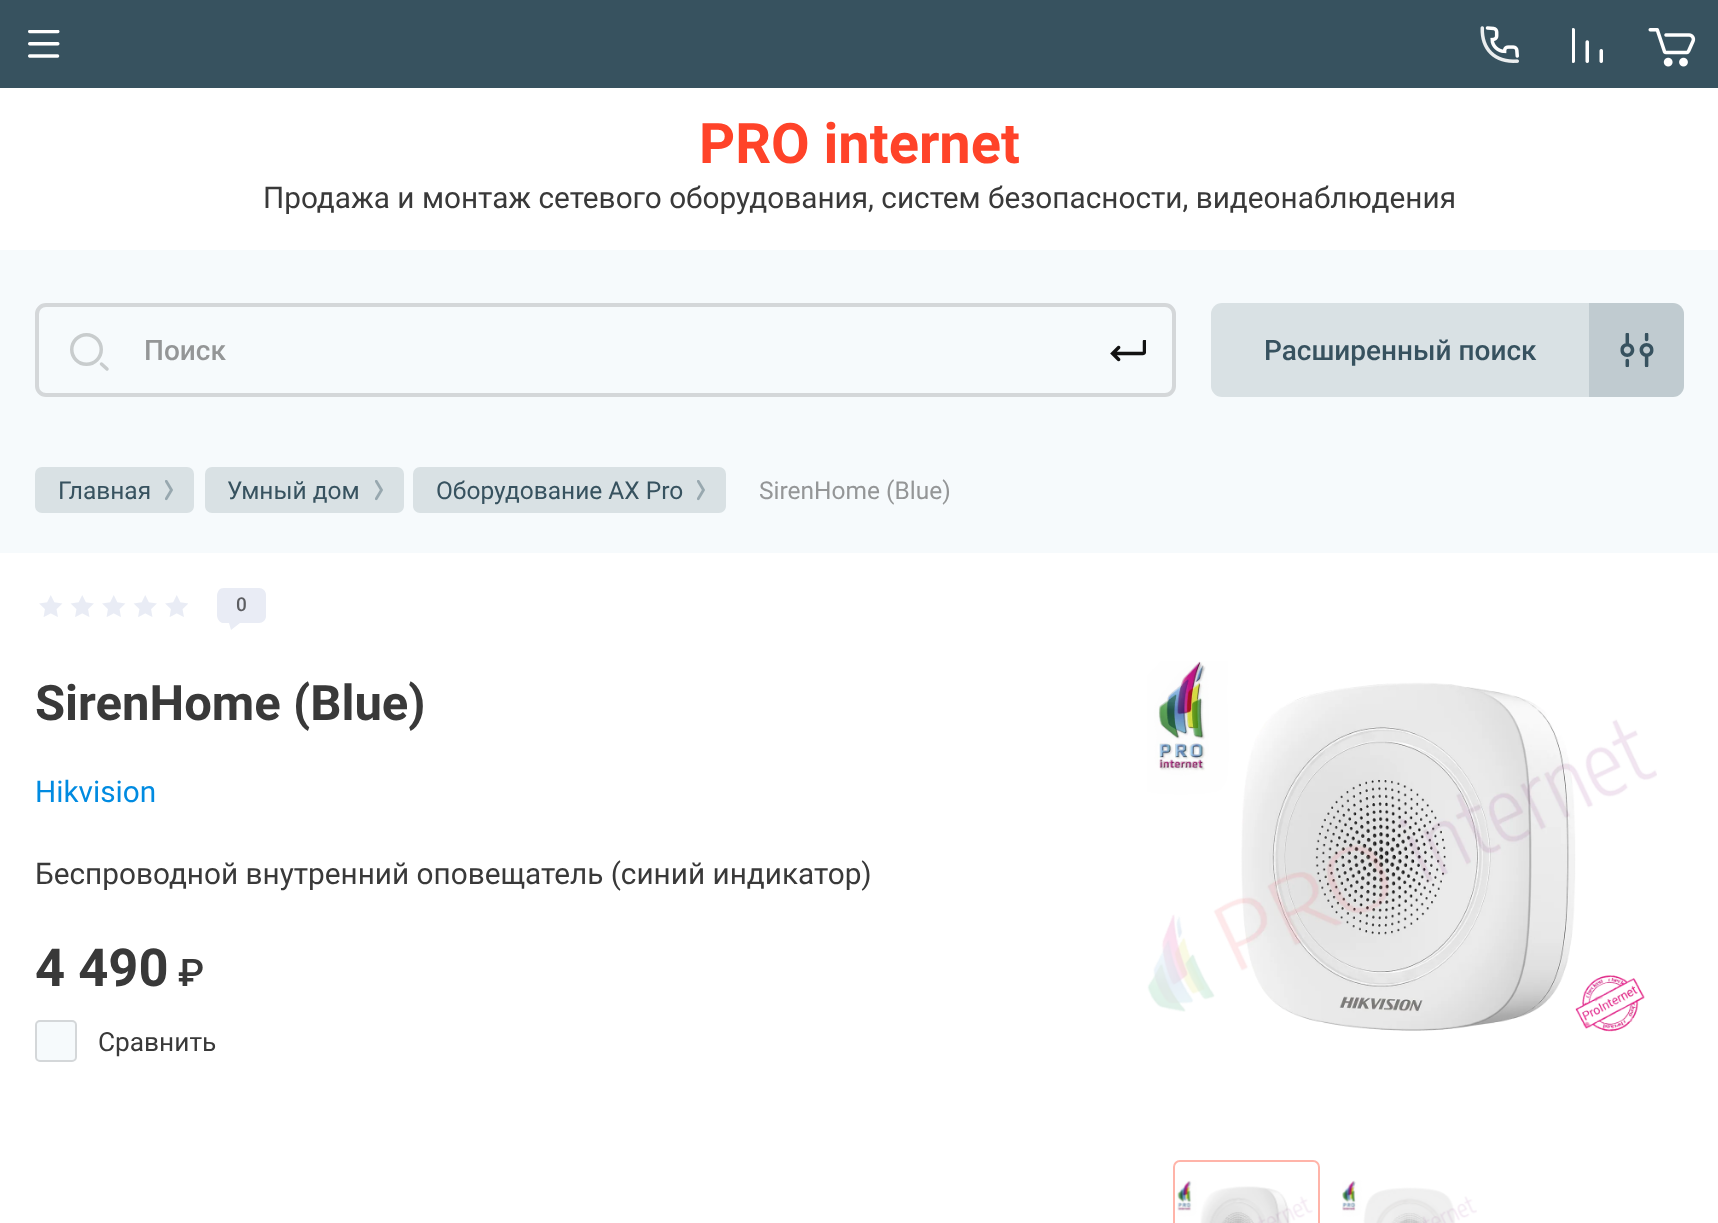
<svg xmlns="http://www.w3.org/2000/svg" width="1718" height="1223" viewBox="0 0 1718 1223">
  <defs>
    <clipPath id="clip1"><path d="M217 588h49v42H217z"/></clipPath>
  </defs>
  <rect width="100%" height="100%" fill="#f6fafc"/>
  <path d="M0 0h1718v88H0z" fill="#37525f"/>
  <image x="28" y="30" width="32" height="28" href="img/1.png"/>
  <image x="1480" y="26" width="39" height="37" href="img/2.png"/>
  <image x="1572" y="28" width="31" height="35" href="img/3.png"/>
  <image x="1648" y="28" width="48" height="39" href="img/4.png"/>
  <path d="M0 88h1718v162H0z" fill="#fff"/>
  <rect x="37" y="305" width="1137" height="90" rx="9" fill="none" stroke="#d4d7d9" stroke-width="4"/>
  <circle cx="86.5" cy="349.5" r="14.75" fill="none" stroke="#c8cccd" stroke-width="3.5"/>
  <path d="M101.5 364L107 369" fill="none" stroke="#c8cccd" stroke-width="3.5" stroke-linecap="round"/>
  <image x="1110" y="340" width="36" height="22" href="img/5.png"/>
  <rect x="1211" y="303" width="473" height="94" rx="11" fill="#d9e1e4"/>
  <path d="M1589 303H1673C1679 303 1684 308 1684 314V386C1684 392 1679 397 1673 397H1589Z" fill="#37525f26"/>
  <image x="1620" y="333" width="34" height="35" href="img/6.png"/>
  <rect x="35" y="467" width="159" height="46" rx="7" fill="#d9e1e4"/>
  <image x="165" y="480" width="8" height="21" href="img/7.png"/>
  <rect x="205" y="467" width="199" height="46" rx="7" fill="#d9e1e4"/>
  <image x="375" y="480" width="8" height="21" href="img/7.png"/>
  <rect x="413" y="467" width="313" height="46" rx="7" fill="#d9e1e4"/>
  <image x="697" y="480" width="8" height="21" href="img/7.png"/>
  <path d="M0 553h1718v670H0z" fill="#fff"/>
  <image x="39" y="595" width="149" height="22" href="img/8.png"/>
  <g clip-path="url(#clip1)">
    <path d="M224 588C215 588 217 600 217 606C217 611 215 621 223 623H229L231 630L240 623H259C263 623 266 620 266 616V595C266 591 263 588 259 588Z" fill="#e9ecf5"/>
  </g>
  <rect x="35" y="1020" width="42" height="42" rx="5" fill="#f6fafc"/>
  <rect x="36" y="1021" width="40" height="40" rx="4" fill="none" stroke="#12121226" stroke-width="2"/>
  <image x="1147" y="661" width="510" height="371" href="img/9.png"/>
  <image x="1177" y="1180" width="136" height="43" href="img/10.png"/>
  <rect x="1174" y="1161" width="145" height="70" rx="6" fill="none" stroke="#ffb4a9" stroke-width="2"/>
  <image x="1342" y="1180" width="135" height="43" href="img/11.png"/>
  <text x="699" y="163" font-family="Roboto" font-size="56" font-weight="bold" fill="#ff4329">PRO internet</text>
  <text x="263" y="208" font-family="Roboto" font-size="29.75" fill="#393939">Продажа и монтаж сетевого оборудования, систем безопасности, видеонаблюдения</text>
  <text x="144" y="360" font-family="Roboto" font-size="28" font-weight="500" fill="#949697">Поиск</text>
  <text x="1264" y="360" font-family="Roboto" font-size="28" font-weight="500" fill="#37525f">Расширенный поиск</text>
  <g font-family="Roboto" font-size="24.5" fill="#37525f">
    <text x="58" y="499">Главная</text>
    <text x="227" y="499">Умный дом</text>
    <text x="436" y="499">Оборудование AX Pro</text>
  </g>
  <text x="759" y="499" font-family="Roboto" font-size="24.5" fill="#949697">SirenHome (Blue)</text>
  <text x="236" y="611" font-family="Roboto" font-size="19" font-weight="500" fill="#5d5e62">0</text>
  <text x="35" y="720" font-family="Roboto" font-size="49" font-weight="bold" fill="#393939">SirenHome (Blue)</text>
  <text x="35" y="802" font-family="Roboto" font-size="29.75" fill="#008be1">Hikvision</text>
  <text x="35" y="884" font-family="Roboto" font-size="29.75" fill="#393939">Беспроводной внутренний оповещатель (синий индикатор)</text>
  <text x="35" y="986" font-family="Roboto" font-size="52.5" font-weight="bold" fill="#393939">4 490</text>
  <text x="178" y="986" font-family="Roboto" font-size="38" font-weight="500" fill="#393939">₽</text>
  <text x="98" y="1051" font-family="Roboto" font-size="26.25" fill="#393939">Сравнить</text>
</svg>
